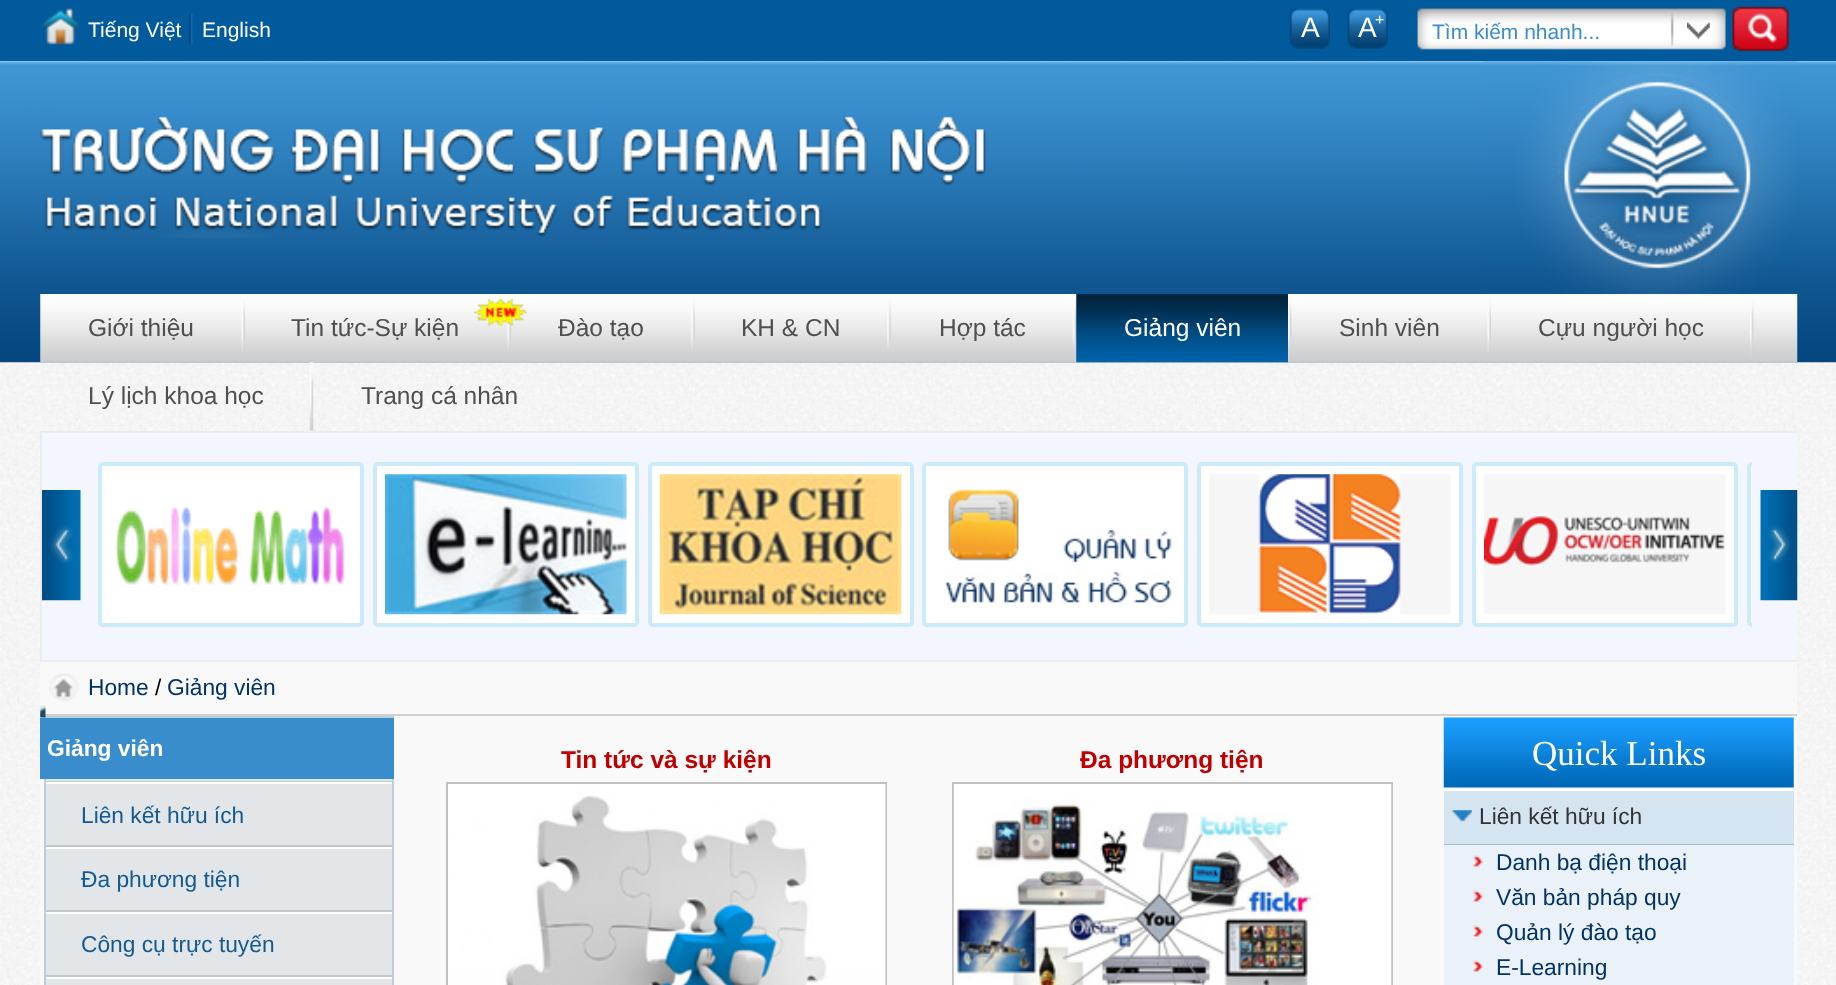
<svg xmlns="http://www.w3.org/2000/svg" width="1836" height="985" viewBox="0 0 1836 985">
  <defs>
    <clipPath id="clip1"><path d="M40 431h1757v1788H40z"/></clipPath>
    <clipPath id="clip2"><path d="M89 462h1663v165H89z"/></clipPath>
  </defs>
  <rect width="100%" height="100%" fill="#fff"/>
  <image x="0" y="61" width="1836" height="924" href="img/1.png"/>
  <path d="M0 0h1836v61H0z" fill="#005a9c"/>
  <image x="42" y="8" width="37" height="37" href="img/2.png"/>
  <image x="189" y="13" width="4" height="32" href="img/3.png"/>
  <image x="1289" y="8" width="41" height="41" href="img/4.png"/>
  <image x="1347" y="8" width="41" height="41" href="img/5.png"/>
  <image x="1417" y="6" width="372" height="46" href="img/6.png"/>
  <image x="1687" y="22" width="23" height="17" href="img/7.png"/>
  <image x="0" y="61" width="1836" height="302" href="img/8.png"/>
  <image x="40" y="116" width="946" height="122" href="img/9.png"/>
  <image x="1482" y="61" width="316" height="233" href="img/10.png"/>
  <image x="40" y="294" width="1758" height="69" href="img/11.png"/>
  <image x="241" y="298" width="4" height="54" href="img/12.png"/>
  <image x="507" y="298" width="4" height="54" href="img/12.png"/>
  <image x="474" y="299" width="53" height="27" href="img/13.png"/>
  <image x="691" y="298" width="4" height="52" href="img/14.png"/>
  <image x="887" y="298" width="4" height="52" href="img/14.png"/>
  <image x="1072" y="298" width="5" height="62" href="img/15.png"/>
  <image x="1076" y="294" width="212" height="69" href="img/16.png"/>
  <image x="1288" y="298" width="4" height="65" href="img/17.png"/>
  <image x="1487" y="298" width="4" height="54" href="img/12.png"/>
  <image x="1750" y="298" width="4" height="62" href="img/18.png"/>
  <image x="309" y="362" width="5" height="69" href="img/19.png"/>
  <path d="M40 662h1757v323H40z" fill="#f9f9f9"/>
  <path d="M42 433h1755v227H42z" fill="#f3f5ff"/>
  <g clip-path="url(#clip1)">
    <path d="M41 432h1759v229H41z" fill="none" stroke="#ececec" stroke-width="2"/>
  </g>
  <image x="42" y="490" width="39" height="111" href="img/20.png"/>
  <rect x="100" y="464" width="262" height="161" rx="3" fill="#fff" stroke="#cbebfa" stroke-width="4"/>
  <image x="115" y="506" width="230" height="79" href="img/21.png"/>
  <rect x="375" y="464" width="262" height="161" rx="3" fill="#fff" stroke="#cbebfa" stroke-width="4"/>
  <image x="385" y="474" width="242" height="141" href="img/22.png"/>
  <rect x="650" y="464" width="262" height="161" rx="3" fill="#fff" stroke="#cbebfa" stroke-width="4"/>
  <image x="659" y="474" width="243" height="141" href="img/23.png"/>
  <rect x="924" y="464" width="262" height="161" rx="3" fill="#fff" stroke="#cbebfa" stroke-width="4"/>
  <image x="944" y="489" width="228" height="120" href="img/24.png"/>
  <rect x="1199" y="464" width="262" height="161" rx="3" fill="#fff" stroke="#cbebfa" stroke-width="4"/>
  <image x="1209" y="474" width="242" height="141" href="img/25.png"/>
  <rect x="1474" y="464" width="262" height="161" rx="3" fill="#fff" stroke="#cbebfa" stroke-width="4"/>
  <image x="1484" y="474" width="242" height="140" href="img/26.png"/>
  <path d="M1752 462V627C1749 627 1747 625 1747 622V467C1747 464 1749 462 1752 462Z" fill="#fff"/>
  <g clip-path="url(#clip2)">
    <rect x="1749" y="464" width="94" height="161" rx="3" fill="none" stroke="#cbebfa" stroke-width="4"/>
  </g>
  <image x="1760" y="490" width="38" height="111" href="img/27.png"/>
  <path d="M40 714h1757v2H40z" fill="#d0d0d0"/>
  <image x="49" y="673" width="30" height="29" href="img/28.png"/>
  <path d="M46 779h346v206H46z" fill="#e3e6e8"/>
  <path d="M45 717h348v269H45z" fill="none" stroke="#bacedb" stroke-width="2"/>
  <image x="40" y="705" width="6" height="13" href="img/29.png"/>
  <path d="M40 718h354v61H40z" fill="#398dcc"/>
  <path d="M46 781h346v1H46z" fill="#c1c7cb"/>
  <path d="M46 782h346v2H46z" fill="#fff"/>
  <path d="M46 845h346v2H46z" fill="#c1c7cb"/>
  <path d="M46 847h346v2H46z" fill="#fff"/>
  <path d="M46 910h346v2H46z" fill="#c1c7cb"/>
  <path d="M46 912h346v2H46z" fill="#fff"/>
  <path d="M46 975h346v2H46z" fill="#c1c7cb"/>
  <path d="M46 977h346v2H46z" fill="#fff"/>
  <path d="M447 783h439v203H447z" fill="none" stroke="#c0c0c0" stroke-width="2"/>
  <image x="448" y="784" width="438" height="201" href="img/30.png"/>
  <path d="M953 783h439v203H953z" fill="none" stroke="#c0c0c0" stroke-width="2"/>
  <image x="953" y="784" width="439" height="201" href="img/31.png"/>
  <image x="1443" y="717" width="351" height="71" href="img/32.png"/>
  <path d="M1444 791h350v53H1444z" fill="#d5e4f1"/>
  <image x="1452" y="810" width="20" height="12" href="img/33.png"/>
  <path d="M1444 789h350v2H1444z" fill="#fff"/>
  <path d="M1444 844h350v1H1444z" fill="#a0bfdb"/>
  <path d="M1444 845h350v140H1444z" fill="#eaf1f8"/>
  <image x="1473" y="855" width="10" height="12" href="img/34.png"/>
  <image x="1473" y="890" width="10" height="12" href="img/34.png"/>
  <image x="1473" y="925" width="10" height="12" href="img/34.png"/>
  <image x="1473" y="960" width="10" height="12" href="img/34.png"/>
  <g font-family="Liberation Sans" font-size="21" fill="#fff">
    <text x="88" y="37">Tiếng Việt</text>
    <text x="202" y="37">English</text>
  </g>
  <g font-family="Liberation Sans" font-size="28" fill="#fff">
    <text x="1301" y="37">A</text>
    <text x="1358" y="37">A</text>
  </g>
  <text x="1375" y="25" font-family="Liberation Sans" font-size="16" fill="#fff">+</text>
  <text x="1432" y="39" font-family="Liberation Sans" font-size="21" fill="#398dcc">Tìm kiếm nhanh...</text>
  <g font-family="Liberation Sans" font-size="24.5" fill="#4f4f4f">
    <text x="88" y="336">Giới thiệu</text>
    <text x="291" y="336">Tin tức-Sự kiện</text>
    <text x="558" y="336">Đào tạo</text>
    <text x="741" y="336">KH &amp; CN</text>
    <text x="939" y="336">Hợp tác</text>
  </g>
  <text x="1124" y="336" font-family="Liberation Sans" font-size="24.5" fill="#fff">Giảng viên</text>
  <g font-family="Liberation Sans" font-size="24.5" fill="#4f4f4f">
    <text x="1339" y="336">Sinh viên</text>
    <text x="1538" y="336">Cựu người học</text>
    <text x="88" y="404">Lý lịch khoa học</text>
    <text x="361" y="404">Trang cá nhân</text>
  </g>
  <text x="88" y="695" font-family="Liberation Sans" font-size="22.75" fill="#036">Home</text>
  <text x="155" y="695" font-family="Liberation Sans" font-size="22.75" fill="#000">/</text>
  <text x="167" y="695" font-family="Liberation Sans" font-size="22.75" fill="#036">Giảng viên</text>
  <text x="47" y="756" font-family="Liberation Sans" font-size="22.75" font-weight="bold" fill="#fff">Giảng viên</text>
  <g font-family="Liberation Sans" font-size="22.75" fill="#135a94">
    <text x="81" y="823">Liên kết hữu ích</text>
    <text x="81" y="887">Đa phương tiện</text>
    <text x="81" y="952">Công cụ trực tuyến</text>
  </g>
  <g font-family="Liberation Sans" font-size="24.5" font-weight="bold" fill="#c00000">
    <text x="561" y="768">Tin tức và sự kiện</text>
    <text x="1080" y="768">Đa phương tiện</text>
  </g>
  <text x="1532" y="765" font-family="Liberation Serif" font-size="35" fill="#fff">Quick Links</text>
  <text x="1479" y="824" font-family="Liberation Sans" font-size="22.75" fill="#333">Liên kết hữu ích</text>
  <g font-family="Liberation Sans" font-size="22.75" fill="#036">
    <text x="1496" y="870">Danh bạ điện thoại</text>
    <text x="1496" y="905">Văn bản pháp quy</text>
    <text x="1496" y="940">Quản lý đào tạo</text>
    <text x="1496" y="975">E-Learning</text>
  </g>
</svg>
